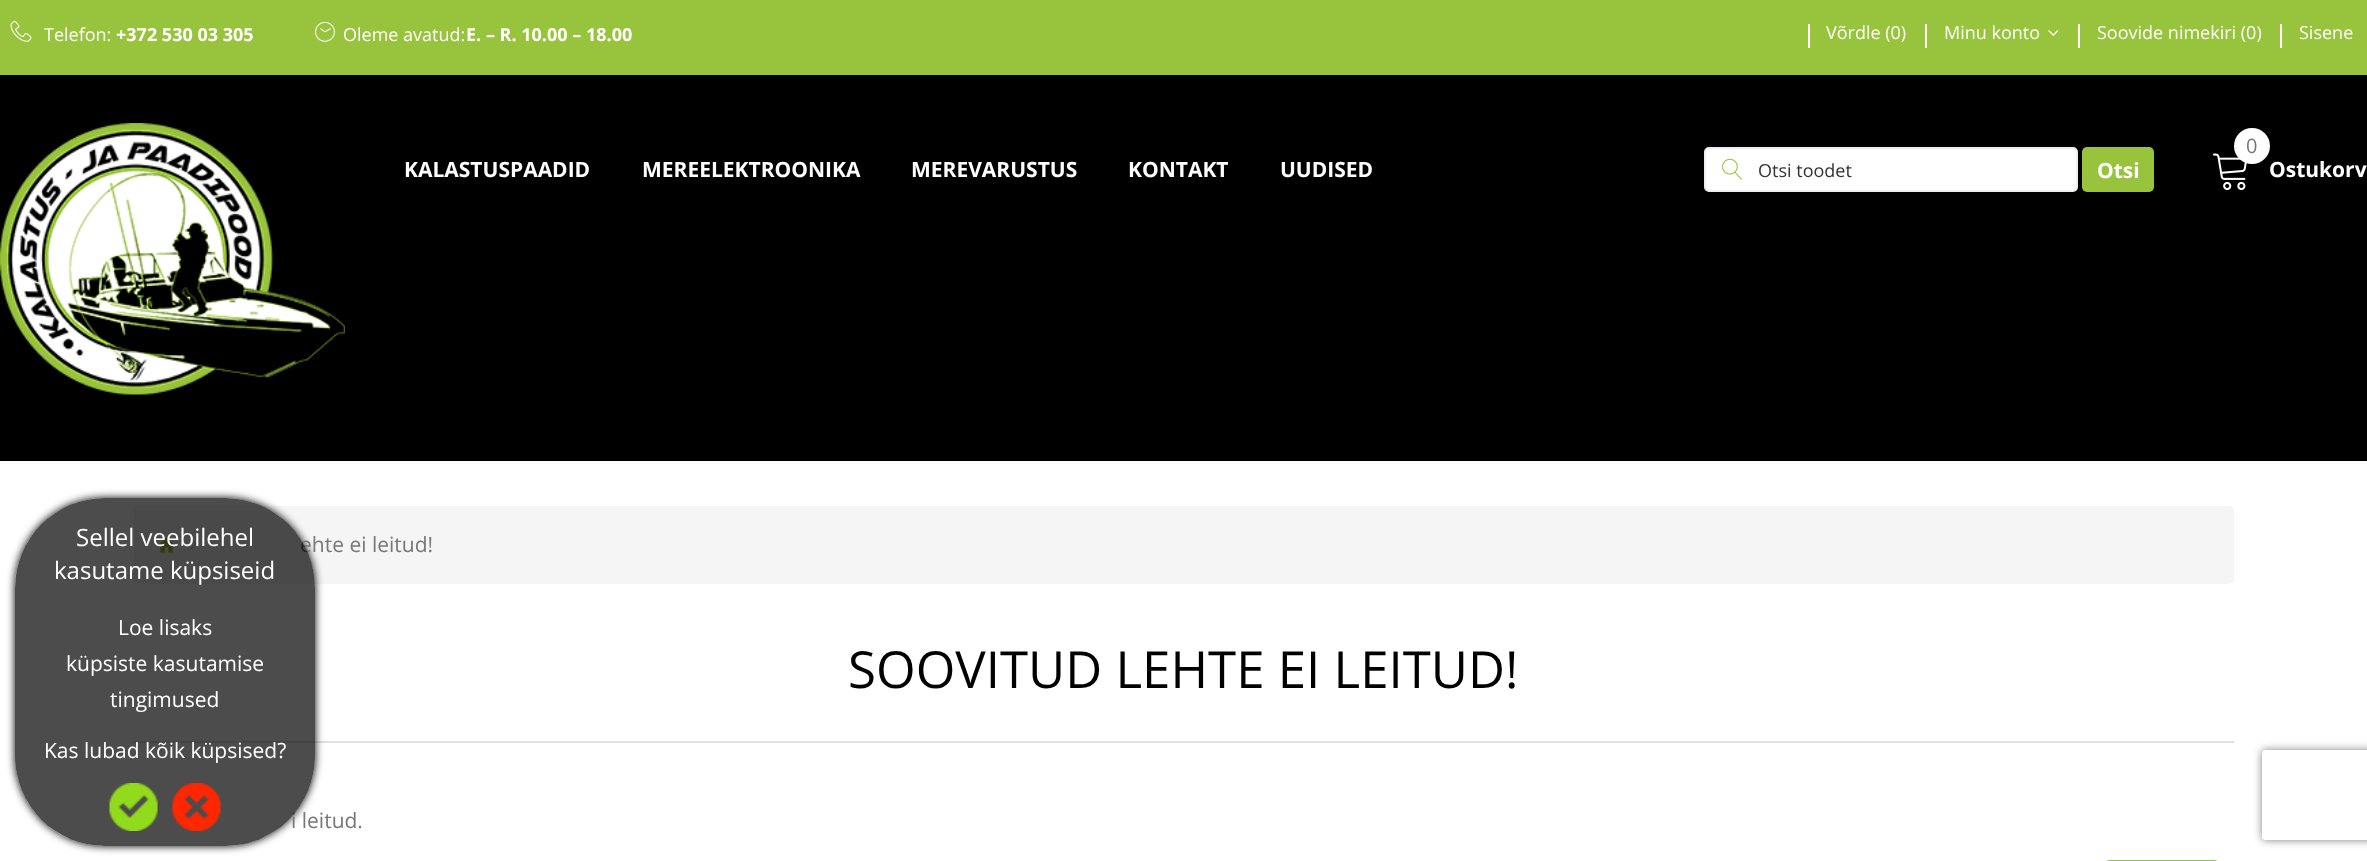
<svg xmlns="http://www.w3.org/2000/svg" width="2367" height="861" viewBox="0 0 2367 861">
  <defs>
    <clipPath id="clip1"><path d="M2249 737H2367V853H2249ZM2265 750H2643C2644.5 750 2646 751.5 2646 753V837C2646 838.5 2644.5 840 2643 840H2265C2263.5 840 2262 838.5 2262 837V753C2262 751.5 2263.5 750 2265 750Z" clip-rule="evenodd"/></clipPath>
    <clipPath id="clip2"><path d="M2 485H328V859H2ZM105 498H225C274.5 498 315 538.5 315 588V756C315 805.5 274.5 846 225 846H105C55.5 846 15 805.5 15 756V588C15 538.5 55.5 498 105 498Z" clip-rule="evenodd"/></clipPath>
  </defs>
  <rect width="100%" height="100%" fill="#fff"/>
  <path d="M0 0h2367v75H0z" fill="#98c33c"/>
  <image x="10" y="20" width="22" height="22" href="img/1.png"/>
  <image x="315" y="21" width="20" height="21" href="img/2.png"/>
  <path d="M1808 24h2v24H1808z" fill="#fff"/>
  <path d="M1925 24h2v24H1925z" fill="#fff"/>
  <image x="2048" y="30" width="11" height="6" href="img/3.png"/>
  <path d="M2078 24h2v24H2078z" fill="#fff"/>
  <path d="M2280 24h2v24H2280z" fill="#fff"/>
  <path d="M0 75h2367v386H0z" fill="#000"/>
  <image x="0" y="123" width="345" height="272" href="img/4.png"/>
  <rect x="1705" y="148" width="372" height="43" rx="4" fill="#fff" stroke="#eee" stroke-width="2"/>
  <image x="1722" y="158" width="20" height="22" href="img/5.png"/>
  <rect x="2082" y="147" width="72" height="45" rx="5" fill="#98c33c"/>
  <image x="2213" y="153" width="34" height="37" href="img/6.png"/>
  <circle cx="2252" cy="146" r="18" fill="#fff"/>
  <rect x="134" y="506" width="2100" height="78" rx="5" fill="#f5f5f5"/>
  <image x="158" y="537" width="17" height="16" href="img/7.png"/>
  <image x="190" y="539" width="7" height="11" href="img/8.png"/>
  <path d="M134 741h2100v2H134z" fill="#e0e0e0"/>
  <rect x="2105" y="860" width="114" height="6" rx="5" fill="#98c33c"/>
  <g clip-path="url(#clip1)">
    <rect x="2262" y="750" width="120" height="90" rx="3" fill="#808080" filter="blur(4px)"/>
  </g>
  <g clip-path="url(#clip2)">
    <rect x="15" y="498" width="300" height="348" rx="90" fill="#000" filter="blur(4px)"/>
  </g>
  <text x="44" y="41" font-family="Open Sans" font-size="18" fill="#fff">Telefon:</text>
  <text x="116" y="41" font-family="Open Sans" font-size="18" font-weight="bold" fill="#fff">+372 530 03 305</text>
  <text x="343" y="41" font-family="Open Sans" font-size="18" fill="#fff">Oleme avatud:</text>
  <text x="466" y="41" font-family="Open Sans" font-size="18" font-weight="bold" fill="#fff">E. – R. 10.00 – 18.00</text>
  <g font-family="Open Sans" font-size="18" fill="#fff">
    <text x="1826" y="39">Võrdle (0)</text>
    <text x="1944" y="39">Minu konto</text>
    <text x="2097" y="39">Soovide nimekiri (0)</text>
    <text x="2299" y="39">Sisene</text>
  </g>
  <g font-family="Open Sans" font-size="21" font-weight="bold" fill="#fff">
    <text x="404" y="177">KALASTUSPAADID</text>
    <text x="642" y="177">MEREELEKTROONIKA</text>
    <text x="911" y="177">MEREVARUSTUS</text>
    <text x="1128" y="177">KONTAKT</text>
    <text x="1280" y="177">UUDISED</text>
  </g>
  <text x="1758" y="177" font-family="Open Sans" font-size="18" fill="#333">Otsi toodet</text>
  <text x="2097" y="178" font-family="Open Sans" font-size="21" font-weight="bold" fill="#fff">Otsi</text>
  <text x="2246" y="153" font-family="Open Sans" font-size="20" fill="#777">0</text>
  <text x="2269" y="177" font-family="Open Sans" font-size="21" font-weight="bold" fill="#fff">Ostukorv</text>
  <text x="300" y="552" font-family="Open Sans" font-size="21" fill="#777">ehte ei leitud!</text>
  <text x="848" y="688" font-family="Open Sans" font-size="51" fill="#000">SOOVITUD LEHTE EI LEITUD!</text>
  <text x="291" y="828" font-family="Open Sans" font-size="21" fill="#777">i leitud.</text>
  <rect x="15" y="498" width="300" height="348" rx="90" fill="#000000b3"/>
  <g font-family="Open Sans" font-size="24" fill="#fff">
    <text x="76" y="546">Sellel veebilehel</text>
    <text x="54" y="579">kasutame küpsiseid</text>
  </g>
  <g font-family="Open Sans" font-size="21" fill="#fff">
    <text x="118" y="635">Loe lisaks</text>
    <text x="66" y="671">küpsiste kasutamise</text>
    <text x="110" y="707">tingimused</text>
    <text x="44" y="758">Kas lubad kõik küpsised?</text>
  </g>
  <image x="109" y="783" width="49" height="48" href="img/9.png"/>
  <image x="172" y="783" width="49" height="48" href="img/10.png"/>
</svg>
